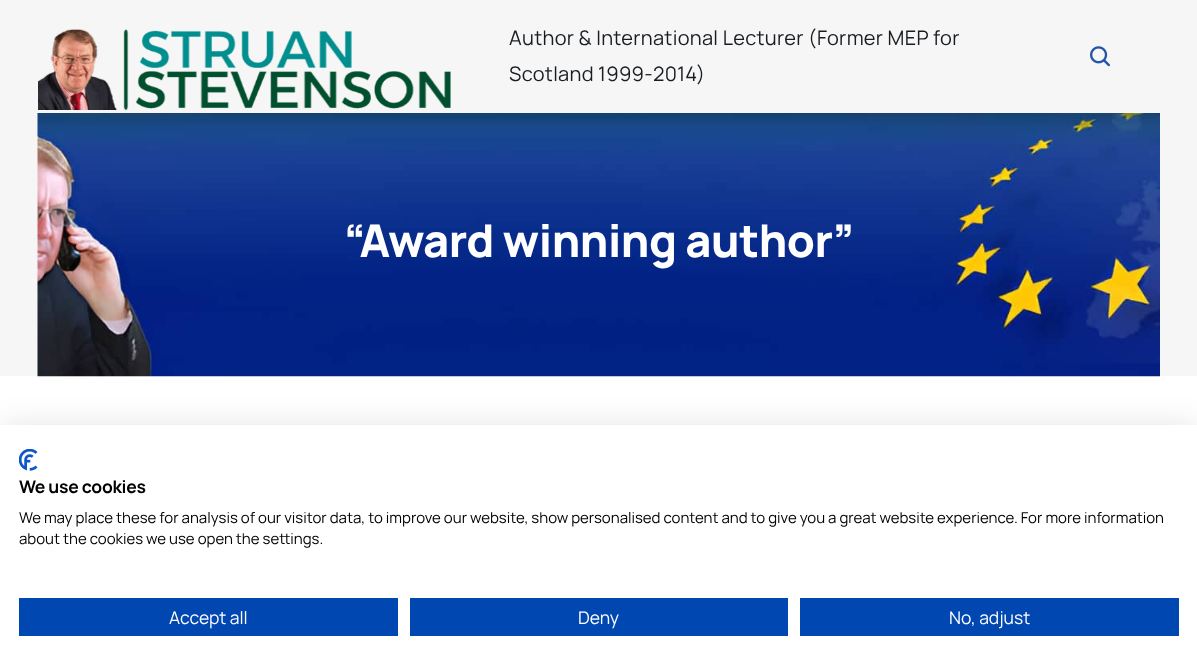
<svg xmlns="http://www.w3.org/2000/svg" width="1197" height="669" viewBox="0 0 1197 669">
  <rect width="100%" height="100%" fill="#fff"/>
  <path d="M0 0h1197v376H0z" fill="#f6f6f6"/>
  <image x="38" y="29" width="413" height="81" href="img/1.png"/>
  <image x="1090" y="46" width="20" height="21" href="img/2.png"/>
  <image x="37" y="113" width="1123" height="264" href="img/3.png"/>
  <path d="M0 425h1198v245H0z" fill="#0000001a" filter="blur(15px)"/>
  <path d="M0 425h1197v244H0z" fill="#fff"/>
  <image x="19" y="449" width="19" height="22" href="img/4.png"/>
  <path d="M19 598h379v38H19z" fill="#0047b2"/>
  <path d="M410 598h378v38H410z" fill="#0047b2"/>
  <path d="M800 598h379v38H800z" fill="#0047b2"/>
  <g font-family="Manrope" font-size="20" letter-spacing="0.3" fill="#191d21">
    <text x="509" y="45">Author &amp; International Lecturer (Former MEP for</text>
    <text x="509" y="81">Scotland 1999-2014)</text>
  </g>
  <text x="344" y="257" font-family="Manrope" font-size="45" font-weight="800" letter-spacing="-0.45" fill="#fff">“Award winning author”</text>
  <text x="19" y="493" font-family="Manrope" font-size="17.5" font-weight="bold" letter-spacing="-0.25" fill="#000">We use cookies</text>
  <g font-family="Manrope" font-size="15" fill="#000">
    <text x="19" y="523">We may place these for analysis of our visitor data, to improve our website, show personalised content and to give you a great website experience. For more information</text>
    <text x="19" y="544">about the cookies we use open the settings.</text>
  </g>
  <g font-family="Manrope" font-size="17.5" fill="#fff">
    <text x="169" y="624">Accept all</text>
    <text x="578" y="624">Deny</text>
    <text x="949" y="624">No, adjust</text>
  </g>
</svg>
